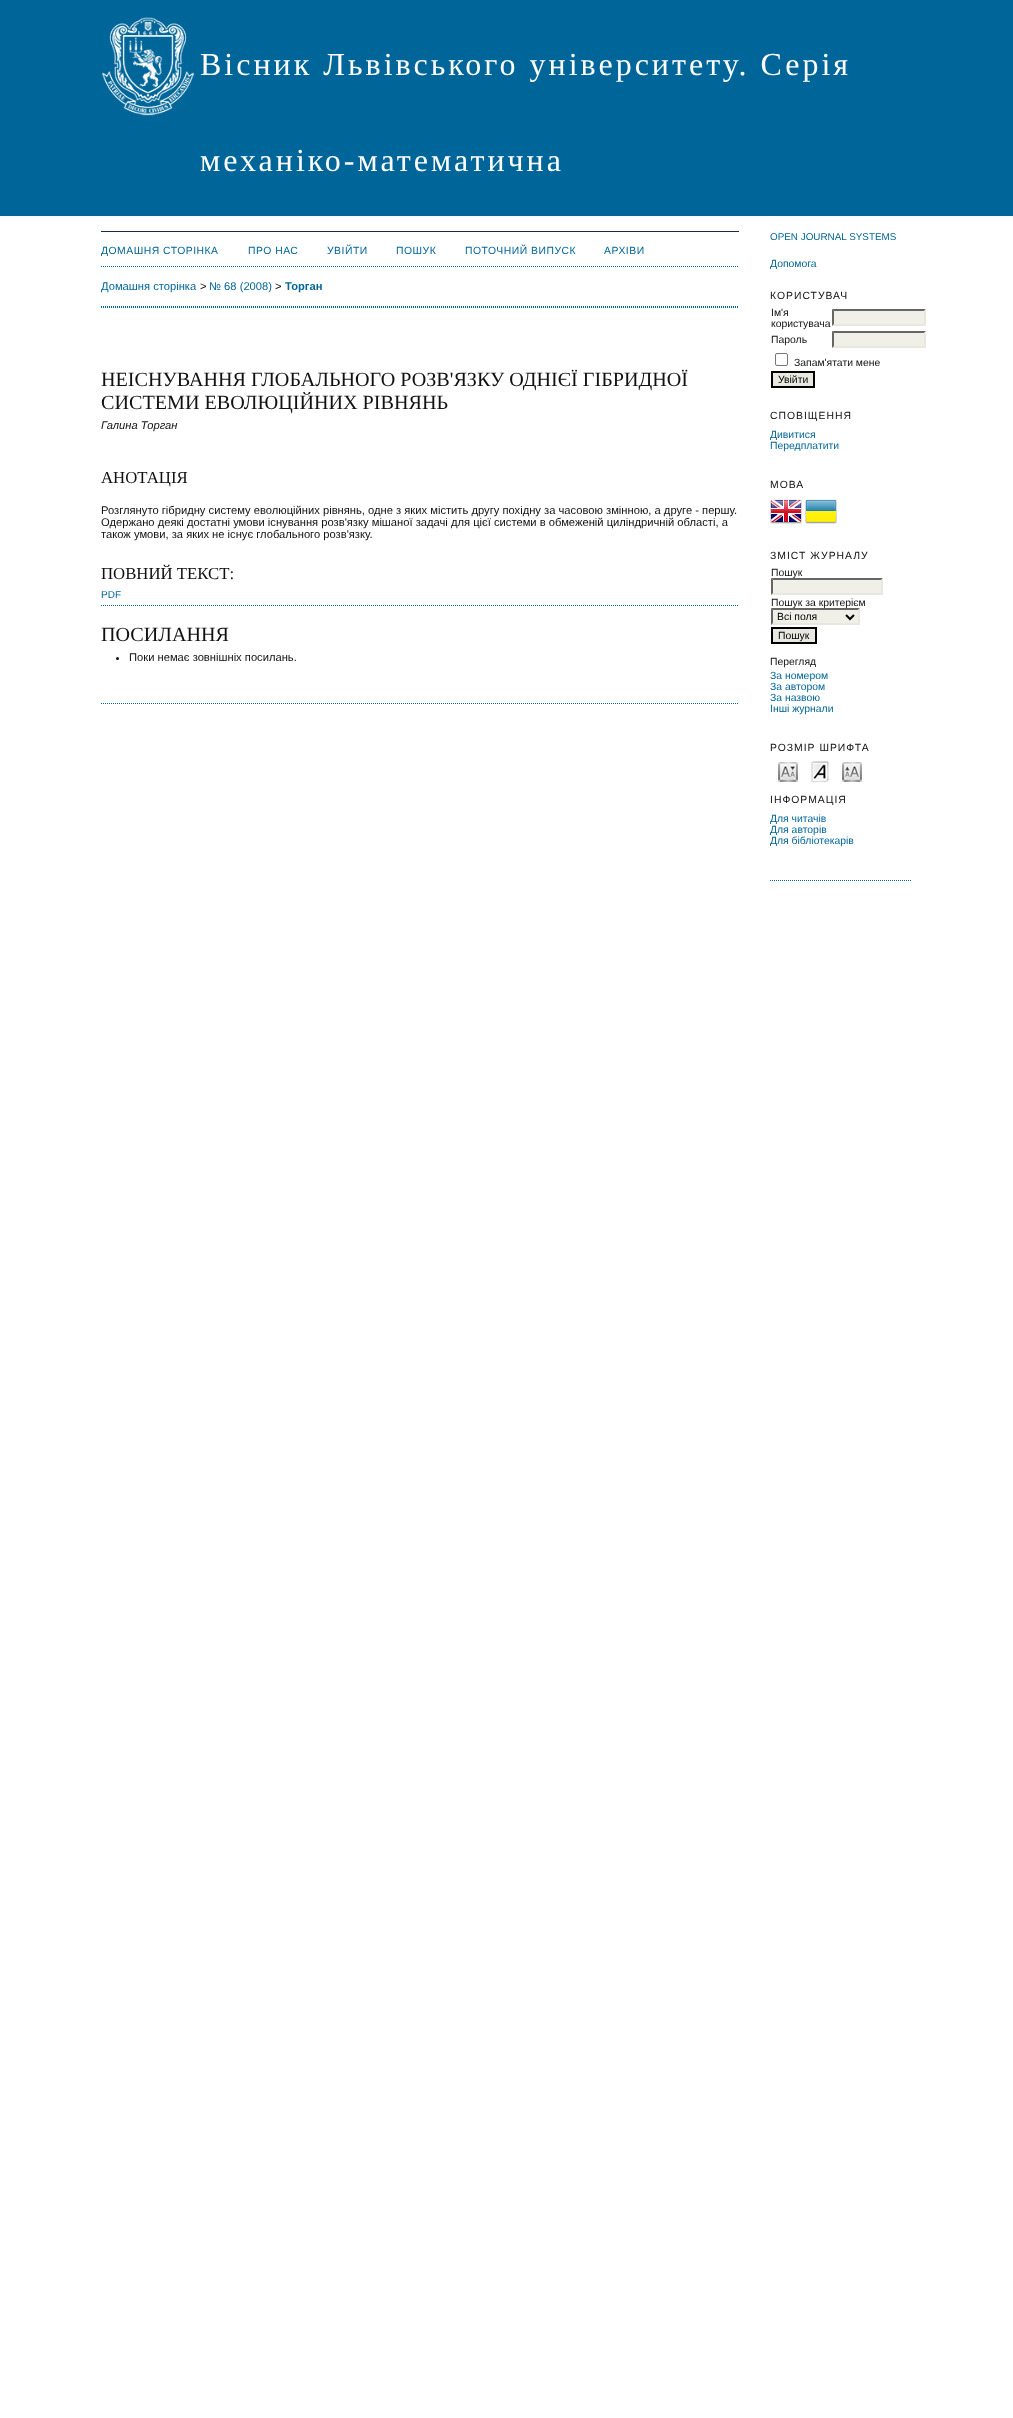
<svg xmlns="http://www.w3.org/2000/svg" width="1013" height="2418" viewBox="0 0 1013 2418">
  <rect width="100%" height="100%" fill="#fff"/>
  <path d="M0 0h1013v216H0z" fill="#069"/>
  <image x="102" y="17" width="93" height="99" href="img/1.png"/>
  <path d="M101 231h638v1H101z" fill="#1a294a"/>
  <path d="M101 703.5H739" fill="none" stroke="#069" stroke-dasharray="1 1"/>
  <path d="M101 266.5H739" fill="none" stroke="#069" stroke-dasharray="1 1"/>
  <path d="M101 306.5H739" fill="none" stroke="#069" stroke-dasharray="1 1"/>
  <path d="M101 307.5H739" fill="none" stroke="#069" stroke-dasharray="1 1"/>
  <path d="M101 605.5H739" fill="none" stroke="#069" stroke-dasharray="1 1"/>
  <circle cx="117.5" cy="658.5" r="1.5" fill="#111"/>
  <path d="M770 880.5H912" fill="none" stroke="#069" stroke-dasharray="1 1"/>
  <path d="M832 309h94v17H832z" fill="#f0f0e8"/>
  <path d="M832 309H926L924 311H834Z" fill="#666"/>
  <path d="M926 309V326L924 324V311Z" fill="#e8e8e1"/>
  <path d="M926 326H832L834 324H924Z" fill="#e8e8e1"/>
  <path d="M832 326V309L834 311V324Z" fill="#666"/>
  <path d="M832 331h94v17H832z" fill="#f0f0e8"/>
  <path d="M832 331H926L924 333H834Z" fill="#666"/>
  <path d="M926 331V348L924 346V333Z" fill="#e8e8e1"/>
  <path d="M926 348H832L834 346H924Z" fill="#e8e8e1"/>
  <path d="M832 348V331L834 333V346Z" fill="#666"/>
  <rect x="775.5" y="353.5" width="12" height="12" rx="1.5" fill="none" stroke="#767676"/>
  <path d="M772 372h42v15H772z" fill="#e8e8e1" stroke="#000" stroke-width="2"/>
  <image x="770" y="499" width="32" height="25" href="img/2.png"/>
  <image x="805" y="499" width="32" height="25" href="img/3.png"/>
  <path d="M772 628h44v15H772z" fill="#e8e8e1" stroke="#000" stroke-width="2"/>
  <image x="778" y="762" width="20" height="20" href="img/4.png"/>
  <image x="811" y="761" width="18" height="21" href="img/5.png"/>
  <image x="842" y="762" width="20" height="20" href="img/6.png"/>
  <g font-family="Liberation Serif" font-size="32" letter-spacing="3" fill="#fff">
    <text x="200" y="75">Вісник Львівського університету. Серія</text>
    <text x="200" y="171">механіко-математична</text>
  </g>
  <g font-family="Liberation Sans" font-size="10.4" letter-spacing="0.5" fill="#069">
    <text x="101" y="254">ДОМАШНЯ СТОРІНКА</text>
    <text x="248" y="254">ПРО НАС</text>
    <text x="327" y="254">УВІЙТИ</text>
    <text x="396" y="254">ПОШУК</text>
    <text x="465" y="254">ПОТОЧНИЙ ВИПУСК</text>
    <text x="604" y="254">АРХІВИ</text>
  </g>
  <text x="101" y="290" font-family="Liberation Sans" font-size="11.2" fill="#069">Домашня сторінка</text>
  <text x="200" y="290" font-family="Liberation Sans" font-size="11.2" fill="#111">&gt;</text>
  <text x="209" y="290" font-family="Liberation Sans" font-size="11.2" fill="#069">№ 68 (2008)</text>
  <text x="275" y="290" font-family="Liberation Sans" font-size="11.2" fill="#111">&gt;</text>
  <text x="285" y="290" font-family="Liberation Sans" font-size="11.2" font-weight="bold" fill="#069">Торган</text>
  <g font-family="Liberation Serif" font-size="20.15" fill="#111">
    <text x="101" y="386">НЕІСНУВАННЯ ГЛОБАЛЬНОГО РОЗВ'ЯЗКУ ОДНІЄЇ ГІБРИДНОЇ</text>
    <text x="101" y="409">СИСТЕМИ ЕВОЛЮЦІЙНИХ РІВНЯНЬ</text>
  </g>
  <text x="101" y="429" font-family="Liberation Sans" font-size="11.2" font-style="italic" fill="#111">Галина Торган</text>
  <text x="101" y="483" font-family="Liberation Serif" font-size="16.75" fill="#111">АНОТАЦІЯ</text>
  <g font-family="Liberation Sans" font-size="11.2" fill="#111">
    <text x="101" y="514">Розглянуто гібридну систему еволюційних рівнянь, одне з яких містить другу похідну за часовою змінною, а друге - першу.</text>
    <text x="101" y="526">Одержано деякі достатні умови існування розв'язку мішаної задачі для цієї системи в обмеженій циліндричній області, а</text>
    <text x="101" y="538">також умови, за яких не існує глобального розв'язку.</text>
  </g>
  <text x="101" y="579" font-family="Liberation Serif" font-size="16.75" fill="#111">ПОВНИЙ ТЕКСТ:</text>
  <text x="101" y="598" font-family="Liberation Sans" font-size="10" fill="#069">PDF</text>
  <text x="101" y="641" font-family="Liberation Serif" font-size="20.15" fill="#111">ПОСИЛАННЯ</text>
  <text x="129" y="661" font-family="Liberation Sans" font-size="11.2" fill="#111">Поки немає зовнішніх посилань.</text>
  <text x="770" y="240" font-family="Liberation Sans" font-size="9.9" fill="#069">OPEN JOURNAL SYSTEMS</text>
  <text x="770" y="267" font-family="Liberation Sans" font-size="10.4" fill="#069">Допомога</text>
  <text x="770" y="299" font-family="Liberation Sans" font-size="10.4" letter-spacing="1" fill="#111">КОРИСТУВАЧ</text>
  <g font-family="Liberation Sans" font-size="10.4" fill="#111">
    <text x="771" y="316">Ім'я</text>
    <text x="771" y="327">користувача</text>
    <text x="771" y="343">Пароль</text>
    <text x="794" y="366">Запам'ятати мене</text>
  </g>
  <text x="778" y="383" font-family="Liberation Sans" font-size="10.4" fill="#000">Увійти</text>
  <text x="770" y="419" font-family="Liberation Sans" font-size="10.4" letter-spacing="1" fill="#111">СПОВІЩЕННЯ</text>
  <g font-family="Liberation Sans" font-size="10.4" fill="#069">
    <text x="770" y="438">Дивитися</text>
    <text x="770" y="449">Передплатити</text>
  </g>
  <g font-family="Liberation Sans" font-size="10.4" letter-spacing="1" fill="#111">
    <text x="770" y="488">МОВА</text>
    <text x="770" y="559">ЗМІСТ ЖУРНАЛУ</text>
  </g>
  <text x="771" y="576" font-family="Liberation Sans" font-size="10.4" fill="#111">Пошук</text>
  <path d="M771 578h112v17H771z" fill="#f0f0e8"/>
  <path d="M771 578H883L881 580H773Z" fill="#666"/>
  <path d="M883 578V595L881 593V580Z" fill="#e8e8e1"/>
  <path d="M883 595H771L773 593H881Z" fill="#e8e8e1"/>
  <path d="M771 595V578L773 580V593Z" fill="#666"/>
  <text x="771" y="606" font-family="Liberation Sans" font-size="10.4" fill="#111">Пошук за критерієм</text>
  <path d="M771 608h89v17H771z" fill="#f0f0e8"/>
  <path d="M771 608H860L858 610H773Z" fill="#666"/>
  <path d="M860 608V625L858 623V610Z" fill="#e8e8e1"/>
  <path d="M860 625H771L773 623H858Z" fill="#e8e8e1"/>
  <path d="M771 625V608L773 610V623Z" fill="#666"/>
  <path d="M846 615L850 619L854 615" fill="none" stroke="#000" stroke-width="2"/>
  <g font-family="Liberation Sans" font-size="10.4" fill="#000">
    <text x="777" y="620">Всі поля</text>
    <text x="778" y="639">Пошук</text>
  </g>
  <text x="770" y="665" font-family="Liberation Sans" font-size="10.4" fill="#111">Перегляд</text>
  <g font-family="Liberation Sans" font-size="10.4" fill="#069">
    <text x="770" y="679">За номером</text>
    <text x="770" y="690">За автором</text>
    <text x="770" y="701">За назвою</text>
    <text x="770" y="712">Інші журнали</text>
  </g>
  <g font-family="Liberation Sans" font-size="10.4" letter-spacing="1" fill="#111">
    <text x="770" y="751">РОЗМІР ШРИФТА</text>
    <text x="770" y="803">ІНФОРМАЦІЯ</text>
  </g>
  <g font-family="Liberation Sans" font-size="10.4" fill="#069">
    <text x="770" y="822">Для читачів</text>
    <text x="770" y="833">Для авторів</text>
    <text x="770" y="844">Для бібліотекарів</text>
  </g>
</svg>
